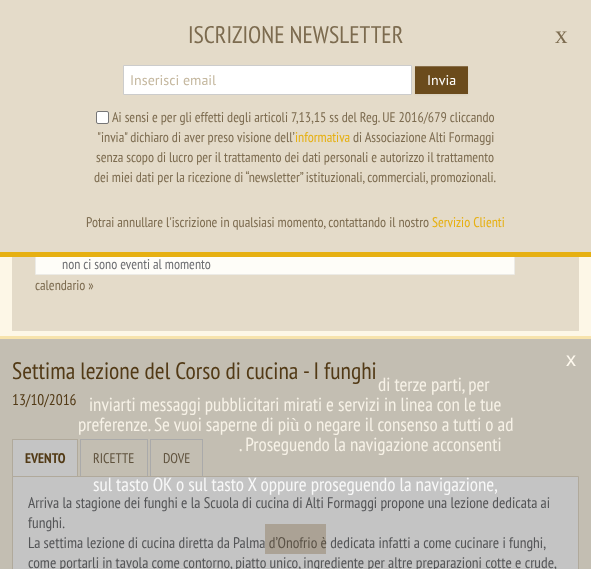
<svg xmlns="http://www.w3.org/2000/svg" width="591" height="569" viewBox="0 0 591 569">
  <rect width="100%" height="100%" fill="#fdf7e7"/>
  <path d="M12 257h567v74H12z" fill="#e4dbc9"/>
  <path d="M36 257h478v17H36z" fill="#fefdf8"/>
  <path d="M35.5 226.5h479v48H35.5z" fill="none" stroke="#ecebe6"/>
  <path d="M0 0h591v252H0z" fill="#e4dbc9"/>
  <path d="M0 252h591v5H0z" fill="#e6b012"/>
  <path d="M123.5 65.5h288v29H123.5z" fill="#fff" stroke="#ccc"/>
  <path d="M415 67h53v28H415z" fill="#0000000d" filter="blur(1px)"/>
  <path d="M415 67h53v27H415z" fill="#6b4b1c"/>
  <path d="M415 66h53v1H415z" fill="#896f49"/>
  <rect x="96.5" y="111.5" width="12" height="12" rx="1.5" fill="#fff" stroke="#767676"/>
  <path d="M0 336h591v3H0z" fill="#f7e3ac"/>
  <path d="M0 339h591v230H0z" fill="#c3beb2"/>
  <path d="M13 440h64v36H13z" fill="#c4c4c4"/>
  <path d="M12 439h66v1H12z" fill="#b0a99b"/>
  <path d="M77 439h1v38H77z" fill="#b0a99b"/>
  <path d="M12 439h1v38H12z" fill="#b0a99b"/>
  <path d="M80 439h68v1H80z" fill="#aaa"/>
  <path d="M147 439h1v37H147z" fill="#aaa"/>
  <path d="M80 439h1v37H80z" fill="#aaa"/>
  <path d="M150 439h53v1H150z" fill="#aaa"/>
  <path d="M202 439h1v37H202z" fill="#aaa"/>
  <path d="M150 439h1v37H150z" fill="#aaa"/>
  <path d="M12.5 476.5h566v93H12.5z" fill="#c4c4c4" stroke="#b0a99b"/>
  <text x="188" y="43" font-family="PT Sans Narrow" font-size="24" fill="#7c6b4f">ISCRIZIONE NEWSLETTER</text>
  <text x="555" y="43" font-family="Liberation Serif" font-size="25" fill="#7c6b4f">x</text>
  <text x="130" y="85" font-family="PT Sans" font-size="14" fill="#c4b79e">Inserisci email</text>
  <text x="427" y="85" font-family="PT Sans" font-size="14" fill="#fff">Invia</text>
  <g font-family="PT Sans Narrow" font-size="14" fill="#7c6b4f">
    <text x="112" y="122">Ai sensi e per gli effetti degli articoli 7,13,15 ss del Reg. UE 2016/679 cliccando</text>
    <text x="97" y="142">"invia" dichiaro di aver preso visione dell’</text>
  </g>
  <text x="295" y="142" font-family="PT Sans Narrow" font-size="14" fill="#e6b012">informativa</text>
  <g font-family="PT Sans Narrow" font-size="14" fill="#7c6b4f">
    <text x="353" y="142">di Associazione Alti Formaggi</text>
    <text x="96" y="162">senza scopo di lucro per il trattamento dei dati personali e autorizzo il trattamento</text>
    <text x="94" y="182">dei miei dati per la ricezione di “newsletter” istituzionali, commerciali, promozionali.</text>
    <text x="86" y="227">Potrai annullare l'iscrizione in qualsiasi momento, contattando il nostro</text>
  </g>
  <text x="432" y="227" font-family="PT Sans Narrow" font-size="14" fill="#e6b012">Servizio Clienti</text>
  <text x="566" y="366" font-family="Liberation Sans" font-size="20" fill="#fef9ee">x</text>
  <g font-family="PT Sans Narrow" font-size="19" fill="#f7f2e7">
    <text x="378" y="391">di terze parti, per</text>
    <text x="89" y="411">inviarti messaggi pubblicitari mirati e servizi in linea con le tue</text>
    <text x="78" y="431">preferenze. Se vuoi saperne di più o negare il consenso a tutti o ad</text>
    <text x="239" y="451">. Proseguendo la navigazione acconsenti</text>
  </g>
  <text x="93" y="491" font-family="PT Sans Narrow" font-size="19" fill="#f8f8f8">sul tasto OK o sul tasto X oppure proseguendo la navigazione,</text>
  <text x="62" y="269" font-family="PT Sans Narrow" font-size="14" fill="#6d6e71">non ci sono eventi al momento</text>
  <text x="35" y="290" font-family="PT Sans Narrow" font-size="14" fill="#7c6b4f">calendario »</text>
  <text x="12" y="379" font-family="PT Sans Narrow" font-size="23.75" fill="#523a16">Settima lezione del Corso di cucina - I funghi</text>
  <text x="12" y="405" font-family="PT Sans Narrow" font-size="15.4" fill="#523a16">13/10/2016</text>
  <text x="25" y="463" font-family="PT Sans Narrow" font-size="14" font-weight="bold" fill="#523a16">EVENTO</text>
  <g font-family="PT Sans Narrow" font-size="14" fill="#5f523d">
    <text x="93" y="463">RICETTE</text>
    <text x="163" y="463">DOVE</text>
  </g>
  <g font-family="PT Sans Narrow" font-size="15.4" fill="#545557">
    <text x="28" y="508">Arriva la stagione dei funghi e la Scuola di cucina di Alti Formaggi propone una lezione dedicata ai</text>
    <text x="28" y="528">funghi.</text>
    <text x="28" y="548">La settima lezione di cucina diretta da Palma d’Onofrio è dedicata infatti a come cucinare i funghi,</text>
  </g>
  <path d="M265 524h61v30H265z" fill="#6b4b1c47"/>
  <text x="28" y="568" font-family="PT Sans Narrow" font-size="15.4" fill="#545557">come portarli in tavola come contorno, piatto unico, ingrediente per altre preparazioni cotte e crude,</text>
</svg>
